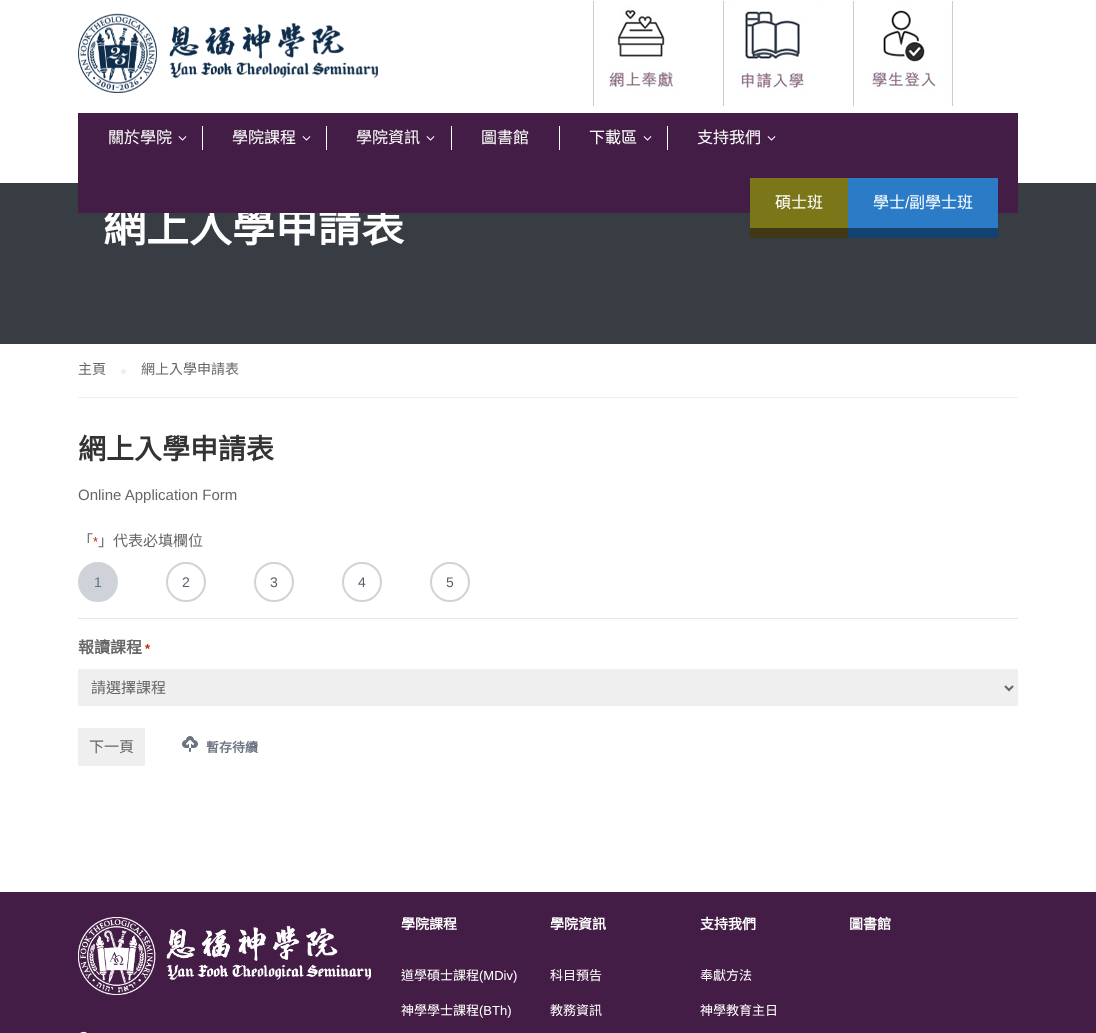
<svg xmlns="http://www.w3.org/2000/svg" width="1096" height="1033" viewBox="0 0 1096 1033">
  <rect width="100%" height="100%" fill="#fff"/>
  <image x="78" y="13" width="300" height="80" href="img/1.png"/>
  <image x="593" y="1" width="84" height="105" href="img/2.png"/>
  <image x="723" y="1" width="100" height="105" href="img/3.png"/>
  <image x="853" y="1" width="100" height="105" href="img/4.png"/>
  <path d="M0 183h1096v161H0z" fill="#383d43"/>
  <path d="M750 228h98v10H750z" fill="#403715"/>
  <path d="M848 228h150v10H848z" fill="#13426f"/>
  <path d="M78 397h940v1H78z" fill="#eee"/>
  <circle cx="123.5" cy="371.5" r="2.5" fill="#eee"/>
  <path d="M78 618h940v1H78z" fill="#e5e7eb"/>
  <circle cx="98" cy="582" r="19" fill="#cfd3d9" stroke="#cfd3d9" stroke-width="2"/>
  <circle cx="186" cy="582" r="19" fill="none" stroke="#cfd3d9" stroke-width="2"/>
  <circle cx="274" cy="582" r="19" fill="none" stroke="#cfd3d9" stroke-width="2"/>
  <circle cx="362" cy="582" r="19" fill="none" stroke="#cfd3d9" stroke-width="2"/>
  <circle cx="450" cy="582" r="19" fill="none" stroke="#cfd3d9" stroke-width="2"/>
  <path d="M78 669h940v37H78z" fill="#efefef"/>
  <path d="M1005 686L1009 690L1013 686" fill="none" stroke="#666" stroke-width="2"/>
  <path d="M78 728h67v38H78z" fill="#efefef"/>
  <image x="182" y="736" width="16" height="16" href="img/6.png"/>
  <path d="M0 892h1096v141H0z" fill="#431d45"/>
  <image x="78" y="917" width="293" height="78" href="img/7.png"/>
  <image x="80" y="1031" width="7" height="2" href="img/8.png"/>
  <text x="103" y="242" font-family="Noto Sans CJK HK" font-size="43" font-weight="bold" fill="#fff">網上入學申請表</text>
  <path d="M78 113h940v100H78z" fill="#431d45"/>
  <image x="767" y="136" width="9" height="5" href="img/5.png"/>
  <path d="M667 126h1v24H667z" fill="#fff"/>
  <text x="697" y="143" font-family="Noto Sans CJK HK" font-size="16" fill="#fff">支持我們</text>
  <image x="643" y="136" width="9" height="5" href="img/5.png"/>
  <path d="M559 126h1v24H559z" fill="#fff"/>
  <text x="589" y="143" font-family="Noto Sans CJK HK" font-size="16" fill="#fff">下載區</text>
  <path d="M451 126h1v24H451z" fill="#fff"/>
  <text x="481" y="143" font-family="Noto Sans CJK HK" font-size="16" fill="#fff">圖書館</text>
  <image x="426" y="136" width="9" height="5" href="img/5.png"/>
  <path d="M326 126h1v24H326z" fill="#fff"/>
  <text x="356" y="143" font-family="Noto Sans CJK HK" font-size="16" fill="#fff">學院資訊</text>
  <image x="302" y="136" width="9" height="5" href="img/5.png"/>
  <path d="M202 126h1v24H202z" fill="#fff"/>
  <text x="232" y="143" font-family="Noto Sans CJK HK" font-size="16" fill="#fff">學院課程</text>
  <image x="178" y="136" width="9" height="5" href="img/5.png"/>
  <text x="108" y="143" font-family="Noto Sans CJK HK" font-size="16" fill="#fff">關於學院</text>
  <path d="M848 178h150v50H848z" fill="#2b7bc7"/>
  <text x="909" y="208" font-family="Noto Sans CJK HK" font-size="16" fill="#fff">副學士班</text>
  <text x="905" y="208" font-family="Liberation Sans" font-size="16" fill="#fff">/</text>
  <text x="873" y="208" font-family="Noto Sans CJK HK" font-size="16" fill="#fff">學士</text>
  <path d="M750 178h98v50H750z" fill="#7b7618"/>
  <text x="775" y="208" font-family="Noto Sans CJK HK" font-size="16" fill="#fff">碩士班</text>
  <g font-family="Noto Sans CJK HK" font-size="14" fill="#666">
    <text x="78" y="374">主頁</text>
    <text x="141" y="374">網上入學申請表</text>
  </g>
  <text x="78" y="459" font-family="Noto Sans CJK HK" font-size="28" font-weight="bold" fill="#333">網上入學申請表</text>
  <text x="78" y="500" font-family="Liberation Sans" font-size="15" fill="#666">Online Application Form</text>
  <text x="78" y="546" font-family="Noto Sans CJK HK" font-size="15" fill="#666">「</text>
  <text x="93" y="546" font-family="Liberation Sans" font-size="13" fill="#c02b0a">*</text>
  <text x="98" y="546" font-family="Noto Sans CJK HK" font-size="15" fill="#666">」代表必填欄位</text>
  <text x="94" y="587" font-family="Liberation Sans" font-size="14" fill="#607382">1</text>
  <g font-family="Liberation Sans" font-size="14" fill="#585e6a">
    <text x="182" y="587">2</text>
    <text x="270" y="587">3</text>
    <text x="358" y="587">4</text>
    <text x="446" y="587">5</text>
  </g>
  <text x="78" y="653" font-family="Noto Sans CJK HK" font-size="16" font-weight="bold" fill="#666">報讀課程</text>
  <text x="145" y="653" font-family="Liberation Sans" font-size="13" font-weight="bold" fill="#c02b0a">*</text>
  <g font-family="Noto Sans CJK HK" font-size="15" fill="#666">
    <text x="91" y="693">請選擇課程</text>
    <text x="89" y="752">下一頁</text>
  </g>
  <text x="206" y="752" font-family="Noto Sans CJK HK" font-size="13" font-weight="bold" fill="#6b7280">暫存待續</text>
  <text x="401" y="929" font-family="Noto Sans CJK HK" font-size="14" font-weight="bold" fill="#fff">學院課程</text>
  <text x="401" y="980" font-family="Noto Sans CJK HK" font-size="13" fill="#fff">道學碩士課程</text>
  <text x="479" y="980" font-family="Liberation Sans" font-size="13" fill="#fff">(MDiv)</text>
  <text x="401" y="1015" font-family="Noto Sans CJK HK" font-size="13" fill="#fff">神學學士課程</text>
  <text x="479" y="1015" font-family="Liberation Sans" font-size="13" fill="#fff">(BTh)</text>
  <text x="550" y="929" font-family="Noto Sans CJK HK" font-size="14" font-weight="bold" fill="#fff">學院資訊</text>
  <g font-family="Noto Sans CJK HK" font-size="13" fill="#fff">
    <text x="550" y="980">科目預告</text>
    <text x="550" y="1015">教務資訊</text>
  </g>
  <text x="700" y="929" font-family="Noto Sans CJK HK" font-size="14" font-weight="bold" fill="#fff">支持我們</text>
  <g font-family="Noto Sans CJK HK" font-size="13" fill="#fff">
    <text x="700" y="980">奉獻方法</text>
    <text x="700" y="1015">神學教育主日</text>
  </g>
  <text x="849" y="929" font-family="Noto Sans CJK HK" font-size="14" font-weight="bold" fill="#fff">圖書館</text>
</svg>
